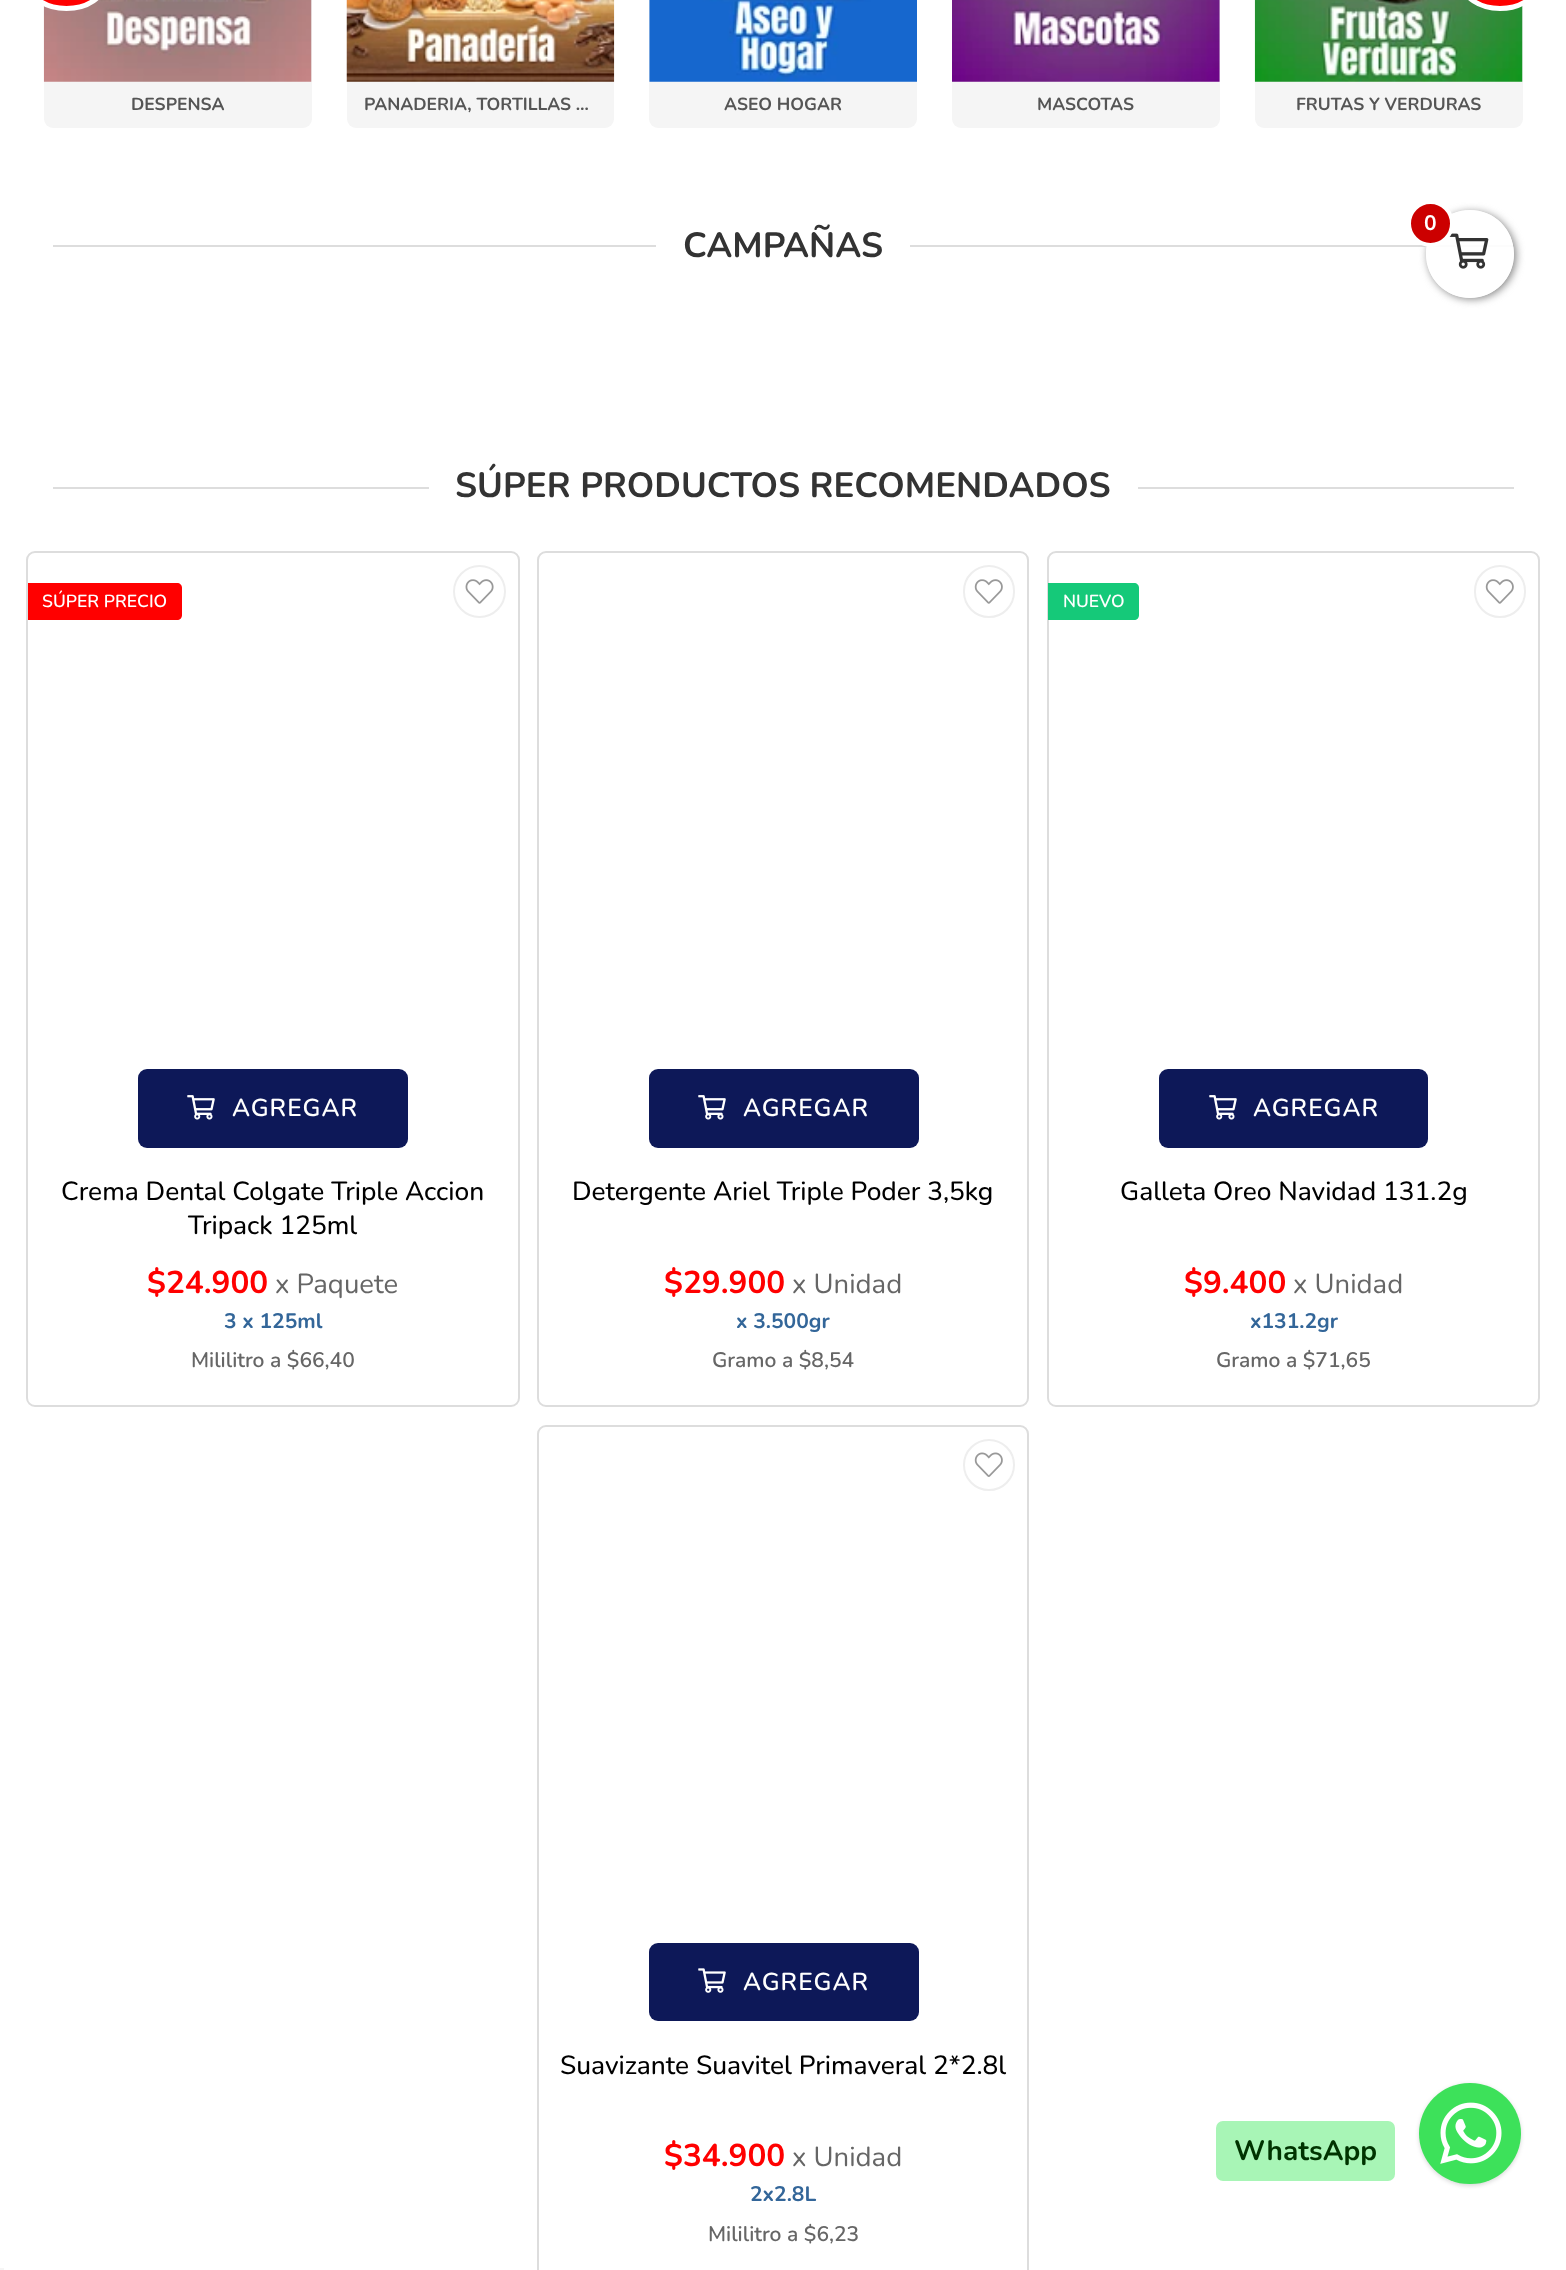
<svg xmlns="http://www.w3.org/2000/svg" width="1566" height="2270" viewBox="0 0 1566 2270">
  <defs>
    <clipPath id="clip1"><path d="M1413 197H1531V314H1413ZM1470 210C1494.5 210 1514 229.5 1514 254C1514 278.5 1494.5 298 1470 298C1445.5 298 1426 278.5 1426 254C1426 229.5 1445.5 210 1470 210Z" clip-rule="evenodd"/></clipPath>
  </defs>
  <rect width="100%" height="100%" fill="#fff"/>
  <rect x="44" y="-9" width="268" height="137" rx="9" fill="#f5f5f5"/>
  <image x="43" y="0" width="269" height="82" href="img/1.png"/>
  <rect x="28.5" y="-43.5" width="76" height="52" rx="38" fill="#f00" stroke="#fff" stroke-width="5"/>
  <rect x="1255" y="-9" width="268" height="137" rx="9" fill="#f5f5f5"/>
  <image x="1254" y="0" width="269" height="82" href="img/5.png"/>
  <rect x="1462.5" y="-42.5" width="75" height="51" rx="37.5" fill="#f00" stroke="#fff" stroke-width="5"/>
  <rect x="347" y="-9" width="267" height="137" rx="9" fill="#f5f5f5"/>
  <image x="346" y="0" width="269" height="82" href="img/2.png"/>
  <rect x="649" y="-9" width="268" height="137" rx="9" fill="#f5f5f5"/>
  <image x="649" y="0" width="268" height="82" href="img/3.png"/>
  <rect x="952" y="-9" width="268" height="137" rx="9" fill="#f5f5f5"/>
  <image x="952" y="0" width="268" height="82" href="img/4.png"/>
  <path d="M53 245h603v2H53z" fill="#ddd"/>
  <path d="M910 245h604v2H910z" fill="#ddd"/>
  <g clip-path="url(#clip1)">
    <rect x="1428" y="212" width="88" height="87" rx="43.5" fill="#808080" filter="blur(4.5px)"/>
  </g>
  <circle cx="1470" cy="254" r="44" fill="#ffffffe6"/>
  <image x="1449" y="233" width="40" height="36" href="img/6.png"/>
  <circle cx="1430.5" cy="223.5" r="21.5" fill="#c00" stroke="#fff" stroke-width="4"/>
  <path d="M53 487h376v2H53z" fill="#ddd"/>
  <path d="M1138 487h376v2H1138z" fill="#ddd"/>
  <rect x="27" y="552" width="492" height="854" rx="8" fill="none" stroke="#ddd" stroke-width="2"/>
  <path d="M28 583H177C180 583 182 585 182 588V615C182 618 180 620 177 620H28Z" fill="#f00"/>
  <rect x="138" y="1069" width="270" height="79" rx="9" fill="#0d1858"/>
  <image x="187" y="1095" width="28" height="25" href="img/7.png"/>
  <circle cx="479.5" cy="591.5" r="25.5" fill="none" stroke="#eee" stroke-width="2"/>
  <image x="465" y="579" width="29" height="25" href="img/8.png"/>
  <rect x="538" y="552" width="490" height="854" rx="8" fill="none" stroke="#ddd" stroke-width="2"/>
  <rect x="964" y="566" width="50" height="51" rx="25" fill="none" stroke="#eee" stroke-width="2"/>
  <image x="974" y="579" width="29" height="25" href="img/9.png"/>
  <rect x="649" y="1069" width="270" height="79" rx="9" fill="#0d1858"/>
  <image x="698" y="1095" width="28" height="25" href="img/7.png"/>
  <rect x="1048" y="552" width="491" height="854" rx="8" fill="none" stroke="#ddd" stroke-width="2"/>
  <path d="M1048 583H1134C1137 583 1139 585 1139 588V615C1139 618 1137 620 1134 620H1048Z" fill="#15c979"/>
  <rect x="1159" y="1069" width="269" height="79" rx="9" fill="#0d1858"/>
  <image x="1209" y="1095" width="28" height="25" href="img/7.png"/>
  <rect x="1475" y="566" width="50" height="51" rx="25" fill="none" stroke="#eee" stroke-width="2"/>
  <image x="1485" y="579" width="29" height="25" href="img/9.png"/>
  <rect x="538" y="1426" width="490" height="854" rx="8" fill="none" stroke="#ddd" stroke-width="2"/>
  <circle cx="989" cy="1465" r="25" fill="none" stroke="#eee" stroke-width="2"/>
  <image x="974" y="1452" width="29" height="25" href="img/10.png"/>
  <rect x="649" y="1943" width="270" height="78" rx="9" fill="#0d1858"/>
  <image x="698" y="1968" width="28" height="25" href="img/11.png"/>
  <rect x="1216" y="2121" width="179" height="60" rx="7" fill="#a8f5b6"/>
  <rect x="1419" y="2084" width="102" height="102" rx="51" fill="#00000026" filter="blur(2px)"/>
  <rect x="1419" y="2083" width="102" height="101" rx="50.5" fill="#3de15a"/>
  <image x="1440" y="2102" width="62" height="62" href="img/12.png"/>
  <path d="M0 2268h4v2H0z" fill="#f5f5f5"/>
  <g font-family="Nunito" font-size="17.5" font-weight="bold" fill="#555">
    <text x="131" y="110">DESPENSA</text>
    <text x="364" y="110">PANADERIA, TORTILLAS …</text>
    <text x="724" y="110">ASEO HOGAR</text>
    <text x="1037" y="110">MASCOTAS</text>
    <text x="1296" y="110">FRUTAS Y VERDURAS</text>
  </g>
  <text x="683" y="257" font-family="Nunito" font-size="35" font-weight="bold" fill="#333">CAMPAÑAS</text>
  <text x="1424" y="230" font-family="Nunito" font-size="21" font-weight="bold" fill="#fff">0</text>
  <text x="455" y="497" font-family="Nunito" font-size="35" font-weight="bold" fill="#333">SÚPER PRODUCTOS RECOMENDADOS</text>
  <text x="42" y="607" font-family="Nunito" font-size="17.5" font-weight="600" fill="#fff">SÚPER PRECIO</text>
  <text x="232" y="1116" font-family="Nunito" font-size="24.5" font-weight="600" letter-spacing="1" fill="#fff">AGREGAR</text>
  <g font-family="Nunito" font-size="26.25" font-weight="500" fill="#000">
    <text x="61" y="1200">Crema Dental Colgate Triple Accion</text>
    <text x="188" y="1234">Tripack 125ml</text>
  </g>
  <text x="147" y="1293" font-family="Nunito" font-size="31.5" font-weight="bold" fill="#f00">$24.900</text>
  <text x="275" y="1293" font-family="Nunito" font-size="27.5" fill="#666">x Paquete</text>
  <text x="224" y="1328" font-family="Nunito" font-size="21" font-weight="bold" fill="#369">3 x 125ml</text>
  <text x="191" y="1367" font-family="Nunito" font-size="21" font-weight="600" fill="#666">Mililitro a $66,40</text>
  <text x="743" y="1116" font-family="Nunito" font-size="24.5" font-weight="600" letter-spacing="1" fill="#fff">AGREGAR</text>
  <text x="572" y="1200" font-family="Nunito" font-size="26.25" font-weight="500" fill="#000">Detergente Ariel Triple Poder 3,5kg</text>
  <text x="664" y="1293" font-family="Nunito" font-size="31.5" font-weight="bold" fill="#f00">$29.900</text>
  <text x="792" y="1293" font-family="Nunito" font-size="27.5" fill="#666">x Unidad</text>
  <text x="736" y="1328" font-family="Nunito" font-size="21" font-weight="bold" fill="#369">x 3.500gr</text>
  <text x="712" y="1367" font-family="Nunito" font-size="21" font-weight="600" fill="#666">Gramo a $8,54</text>
  <text x="1063" y="607" font-family="Nunito" font-size="17.5" font-weight="600" fill="#fff">NUEVO</text>
  <text x="1253" y="1116" font-family="Nunito" font-size="24.5" font-weight="600" letter-spacing="1" fill="#fff">AGREGAR</text>
  <text x="1120" y="1200" font-family="Nunito" font-size="26.25" font-weight="500" fill="#000">Galleta Oreo Navidad 131.2g</text>
  <text x="1184" y="1293" font-family="Nunito" font-size="31.5" font-weight="bold" fill="#f00">$9.400</text>
  <text x="1293" y="1293" font-family="Nunito" font-size="27.5" fill="#666">x Unidad</text>
  <text x="1250" y="1328" font-family="Nunito" font-size="21" font-weight="bold" fill="#369">x131.2gr</text>
  <text x="1216" y="1367" font-family="Nunito" font-size="21" font-weight="600" fill="#666">Gramo a $71,65</text>
  <text x="743" y="1990" font-family="Nunito" font-size="24.5" font-weight="600" letter-spacing="1" fill="#fff">AGREGAR</text>
  <text x="560" y="2074" font-family="Nunito" font-size="26.25" font-weight="500" fill="#000">Suavizante Suavitel Primaveral 2*2.8l</text>
  <text x="664" y="2166" font-family="Nunito" font-size="31.5" font-weight="bold" fill="#f00">$34.900</text>
  <text x="792" y="2166" font-family="Nunito" font-size="27.5" fill="#666">x Unidad</text>
  <text x="750" y="2201" font-family="Nunito" font-size="21" font-weight="bold" fill="#369">2x2.8L</text>
  <text x="708" y="2241" font-family="Nunito" font-size="21" font-weight="600" fill="#666">Mililitro a $6,23</text>
  <text x="1234" y="2160" font-family="Nunito" font-size="28" font-weight="bold" fill="#030">WhatsApp</text>
</svg>
